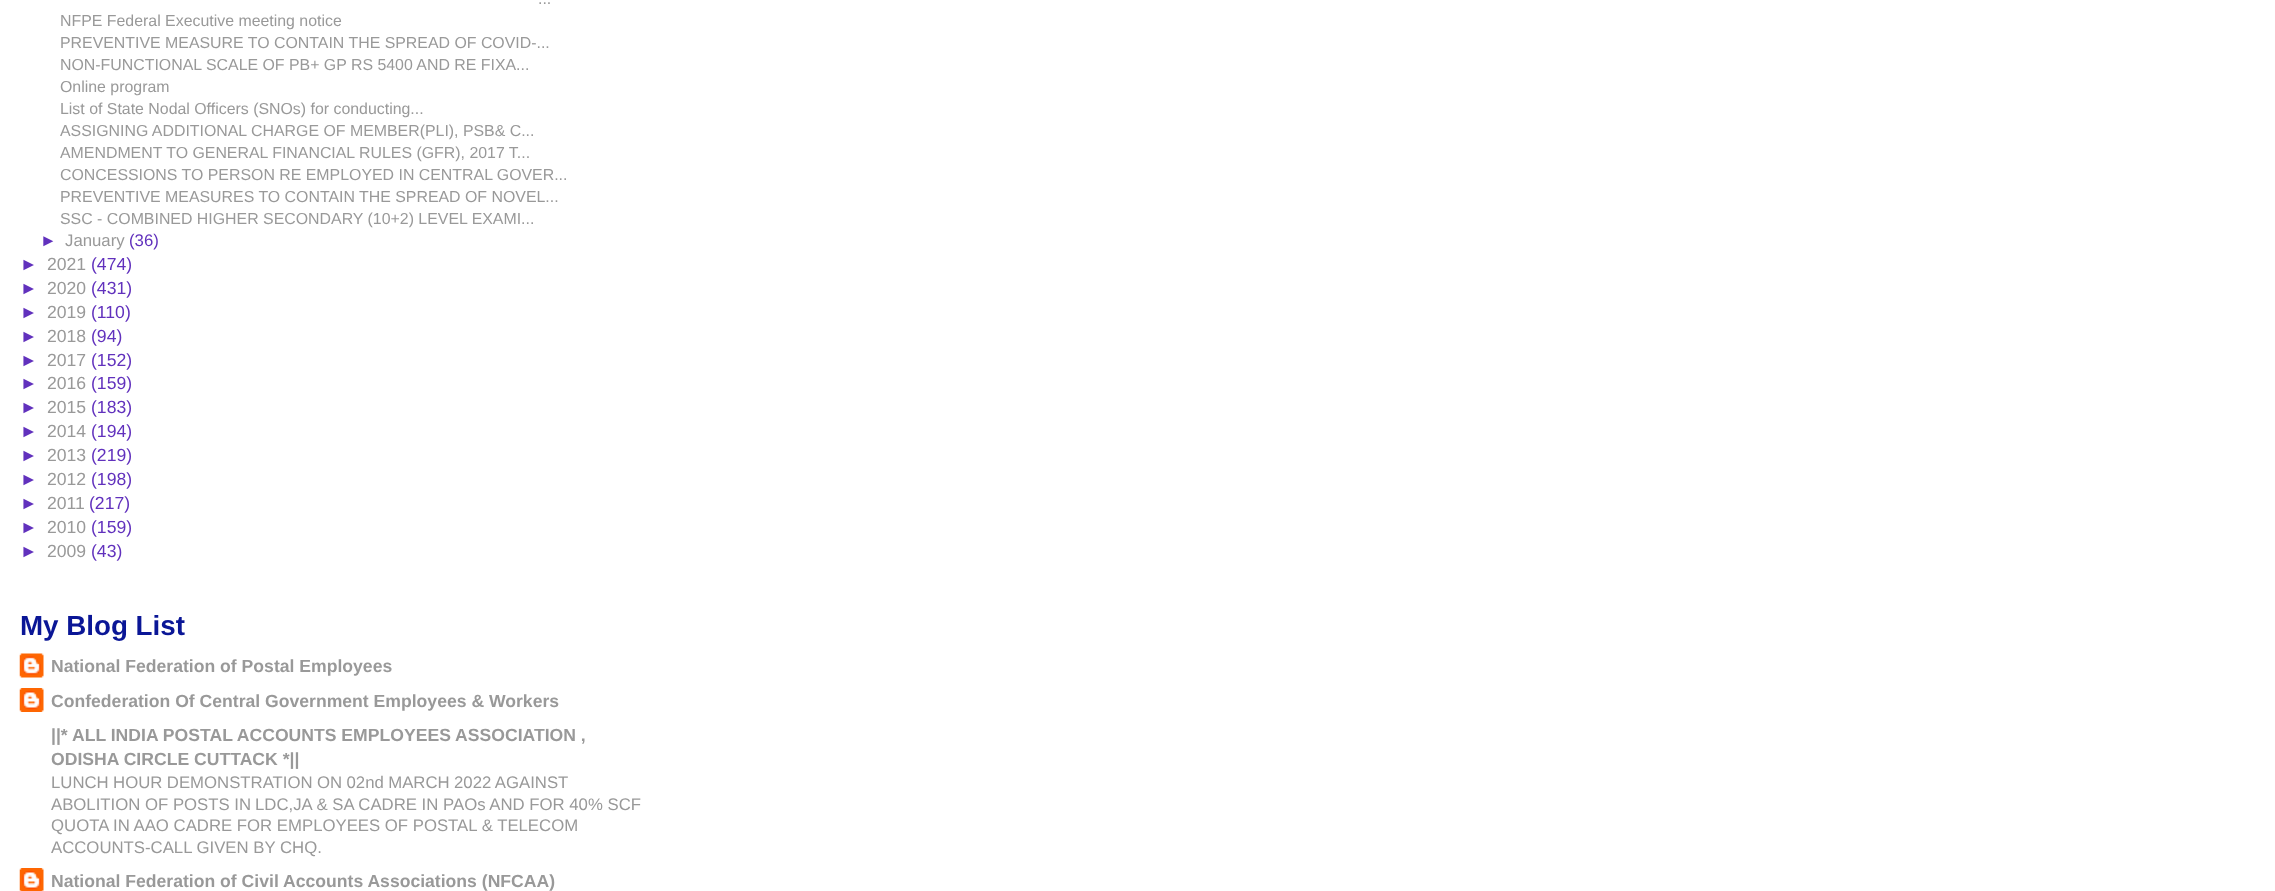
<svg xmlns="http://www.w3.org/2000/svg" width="2275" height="891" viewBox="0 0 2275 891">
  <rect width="100%" height="100%" fill="#fff"/>
  <image x="19" y="653" width="25" height="25" href="img/1.png"/>
  <image x="19" y="688" width="25" height="24" href="img/2.png"/>
  <image x="19" y="868" width="25" height="23" href="img/3.png"/>
  <g font-family="Liberation Sans" font-size="15.9" fill="#999">
    <text x="538" y="4">...</text>
    <text x="60" y="26">NFPE Federal Executive meeting notice</text>
    <text x="60" y="48">PREVENTIVE MEASURE TO CONTAIN THE SPREAD OF COVID-...</text>
    <text x="60" y="70">NON-FUNCTIONAL SCALE OF PB+ GP RS 5400 AND RE FIXA...</text>
    <text x="60" y="92">Online program</text>
    <text x="60" y="114">List of State Nodal Officers (SNOs) for conducting...</text>
    <text x="60" y="136">ASSIGNING ADDITIONAL CHARGE OF MEMBER(PLI), PSB&amp; C...</text>
    <text x="60" y="158">AMENDMENT TO GENERAL FINANCIAL RULES (GFR), 2017 T...</text>
    <text x="60" y="180">CONCESSIONS TO PERSON RE EMPLOYED IN CENTRAL GOVER...</text>
    <text x="60" y="202">PREVENTIVE MEASURES TO CONTAIN THE SPREAD OF NOVEL...</text>
    <text x="60" y="224">SSC - COMBINED HIGHER SECONDARY (10+2) LEVEL EXAMI...</text>
  </g>
  <text x="40" y="246" font-family="Liberation Sans" font-size="16.75" fill="#6131bd">►</text>
  <text x="65" y="246" font-family="Liberation Sans" font-size="16.75" fill="#999">January</text>
  <text x="129" y="246" font-family="Liberation Sans" font-size="16.75" fill="#6131bd">(36)</text>
  <text x="20" y="270" font-family="Liberation Sans" font-size="17.6" fill="#6131bd">►</text>
  <text x="47" y="270" font-family="Liberation Sans" font-size="17.6" fill="#999">2021</text>
  <g font-family="Liberation Sans" font-size="17.6" fill="#6131bd">
    <text x="91" y="270">(474)</text>
    <text x="20" y="294">►</text>
  </g>
  <text x="47" y="294" font-family="Liberation Sans" font-size="17.6" fill="#999">2020</text>
  <g font-family="Liberation Sans" font-size="17.6" fill="#6131bd">
    <text x="91" y="294">(431)</text>
    <text x="20" y="318">►</text>
  </g>
  <text x="47" y="318" font-family="Liberation Sans" font-size="17.6" fill="#999">2019</text>
  <g font-family="Liberation Sans" font-size="17.6" fill="#6131bd">
    <text x="91" y="318">(110)</text>
    <text x="20" y="342">►</text>
  </g>
  <text x="47" y="342" font-family="Liberation Sans" font-size="17.6" fill="#999">2018</text>
  <g font-family="Liberation Sans" font-size="17.6" fill="#6131bd">
    <text x="91" y="342">(94)</text>
    <text x="20" y="366">►</text>
  </g>
  <text x="47" y="366" font-family="Liberation Sans" font-size="17.6" fill="#999">2017</text>
  <g font-family="Liberation Sans" font-size="17.6" fill="#6131bd">
    <text x="91" y="366">(152)</text>
    <text x="20" y="389">►</text>
  </g>
  <text x="47" y="389" font-family="Liberation Sans" font-size="17.6" fill="#999">2016</text>
  <g font-family="Liberation Sans" font-size="17.6" fill="#6131bd">
    <text x="91" y="389">(159)</text>
    <text x="20" y="413">►</text>
  </g>
  <text x="47" y="413" font-family="Liberation Sans" font-size="17.6" fill="#999">2015</text>
  <g font-family="Liberation Sans" font-size="17.6" fill="#6131bd">
    <text x="91" y="413">(183)</text>
    <text x="20" y="437">►</text>
  </g>
  <text x="47" y="437" font-family="Liberation Sans" font-size="17.6" fill="#999">2014</text>
  <g font-family="Liberation Sans" font-size="17.6" fill="#6131bd">
    <text x="91" y="437">(194)</text>
    <text x="20" y="461">►</text>
  </g>
  <text x="47" y="461" font-family="Liberation Sans" font-size="17.6" fill="#999">2013</text>
  <g font-family="Liberation Sans" font-size="17.6" fill="#6131bd">
    <text x="91" y="461">(219)</text>
    <text x="20" y="485">►</text>
  </g>
  <text x="47" y="485" font-family="Liberation Sans" font-size="17.6" fill="#999">2012</text>
  <g font-family="Liberation Sans" font-size="17.6" fill="#6131bd">
    <text x="91" y="485">(198)</text>
    <text x="20" y="509">►</text>
  </g>
  <text x="47" y="509" font-family="Liberation Sans" font-size="17.6" fill="#999">2011</text>
  <g font-family="Liberation Sans" font-size="17.6" fill="#6131bd">
    <text x="89" y="509">(217)</text>
    <text x="20" y="533">►</text>
  </g>
  <text x="47" y="533" font-family="Liberation Sans" font-size="17.6" fill="#999">2010</text>
  <g font-family="Liberation Sans" font-size="17.6" fill="#6131bd">
    <text x="91" y="533">(159)</text>
    <text x="20" y="557">►</text>
  </g>
  <text x="47" y="557" font-family="Liberation Sans" font-size="17.6" fill="#999">2009</text>
  <text x="91" y="557" font-family="Liberation Sans" font-size="17.6" fill="#6131bd">(43)</text>
  <text x="20" y="635" font-family="Liberation Sans" font-size="27.75" font-weight="bold" fill="#0a1696">My Blog List</text>
  <g font-family="Liberation Sans" font-size="17.6" font-weight="bold" fill="#999">
    <text x="51" y="672">National Federation of Postal Employees</text>
    <text x="51" y="707">Confederation Of Central Government Employees &amp; Workers</text>
    <text x="51" y="741">||* ALL INDIA POSTAL ACCOUNTS EMPLOYEES ASSOCIATION ,</text>
    <text x="51" y="765">ODISHA CIRCLE CUTTACK *||</text>
  </g>
  <g font-family="Liberation Sans" font-size="16.75" fill="#999">
    <text x="51" y="788" word-spacing="-0.25">LUNCH HOUR DEMONSTRATION ON 02nd MARCH 2022 AGAINST</text>
    <text x="51" y="810">ABOLITION OF POSTS IN</text>
    <text x="255" y="810">LDC,JA &amp; SA CADRE IN PAOs AND FOR 40% SCF</text>
    <text x="51" y="831">QUOTA IN AAO CADRE FOR EMPLOYEES OF POSTAL &amp; TELECOM</text>
    <text x="51" y="853">ACCOUNTS-CALL GIVEN BY CHQ.</text>
  </g>
  <text x="51" y="887" font-family="Liberation Sans" font-size="17.6" font-weight="bold" fill="#999">National Federation of Civil Accounts Associations (NFCAA)</text>
</svg>
